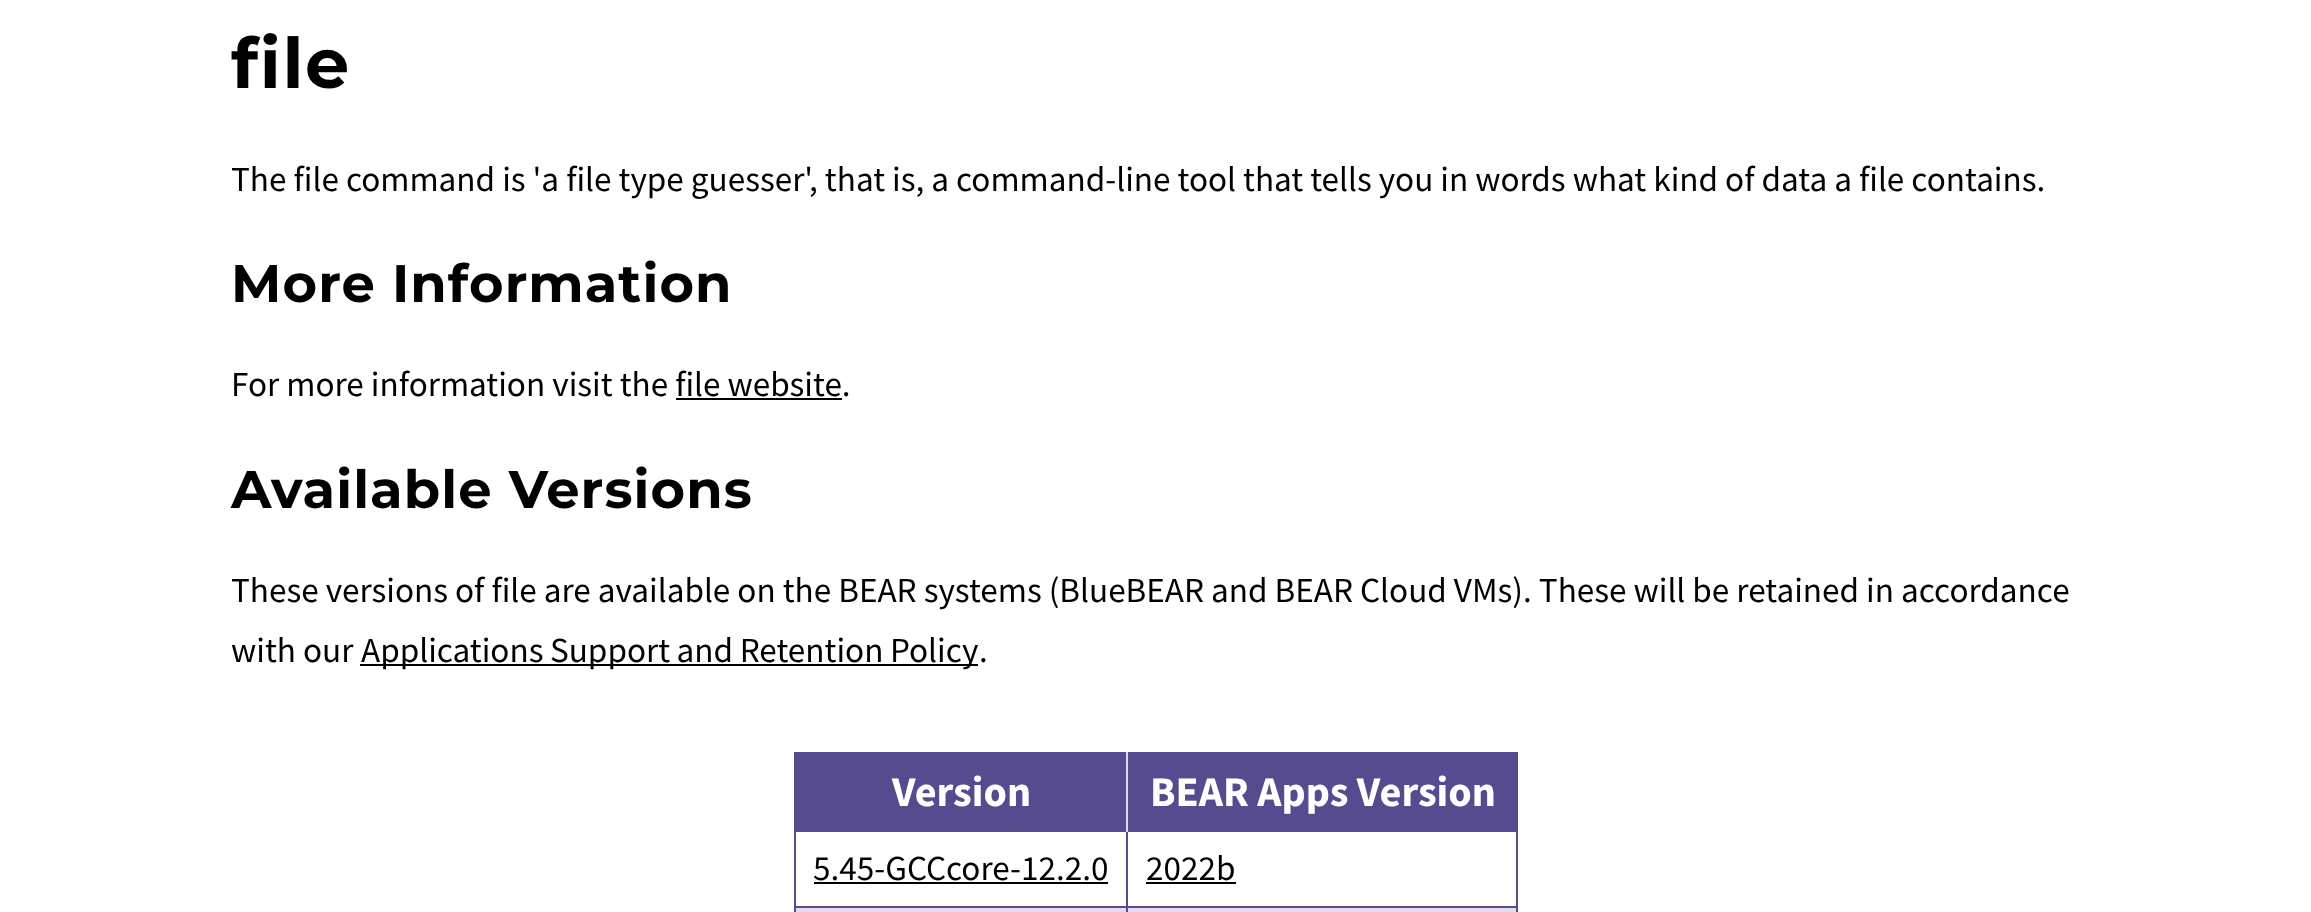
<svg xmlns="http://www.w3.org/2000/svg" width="2311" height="912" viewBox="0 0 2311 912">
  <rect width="100%" height="100%" fill="#fff"/>
  <path d="M676 398h166v2H676z" fill="#000"/>
  <path d="M360 664h618v2H360z" fill="#000"/>
  <path d="M794 908h724v4H794z" fill="#e5d9f2"/>
  <path d="M1516 752h2v160H1516z" fill="#574b90"/>
  <path d="M794 752h2v160H794z" fill="#574b90"/>
  <path d="M796 752h330v80H796z" fill="#574b90"/>
  <path d="M1128 752h388v80H1128z" fill="#574b90"/>
  <path d="M1126 906h392v2H1126z" fill="#574b90"/>
  <path d="M1126 906h2v6H1126z" fill="#574b90"/>
  <path d="M794 906h334v2H794z" fill="#574b90"/>
  <path d="M1126 830h2v78H1126z" fill="#574b90"/>
  <path d="M1126 752h2v80H1126z" fill="#e5d9f2"/>
  <path d="M814 882h294v2H814z" fill="#000"/>
  <path d="M1146 882h90v2H1146z" fill="#000"/>
  <text x="231" y="88" font-family="Montserrat" font-size="70" font-weight="bold" letter-spacing="1.5" fill="#000">file</text>
  <g font-family="Source Sans Pro" font-size="35.2" fill="#000">
    <text x="231" y="191">The file command is 'a file type guesser', that is, a command-line tool</text>
    <text x="1243" y="191">that tells you in words what kind of data a file contains.</text>
  </g>
  <text x="231" y="302" font-family="Montserrat" font-size="52.75" font-weight="bold" letter-spacing="1.1" fill="#000">More Information</text>
  <text x="231" y="396" font-family="Source Sans Pro" font-size="35.2" fill="#000">For more information visit the file website.</text>
  <text x="231" y="508" font-family="Montserrat" font-size="52.75" font-weight="bold" letter-spacing="1.1" fill="#000">Available Versions</text>
  <g font-family="Source Sans Pro" font-size="35.2" fill="#000">
    <text x="231" y="602">These versions of file are available on the BEAR systems (BlueBEAR and BEAR Cloud VMs). These will be retained in accordance</text>
    <text x="231" y="662">with our</text>
    <text x="361" y="662" word-spacing="-0.5">Applications Support and Retention Policy</text>
    <text x="979" y="662">.</text>
  </g>
  <g font-family="Source Sans Pro" font-size="42.25" font-weight="bold" fill="#fff">
    <text x="892" y="806">Version</text>
    <text x="1150" y="806">BEAR Apps Version</text>
  </g>
  <g font-family="Source Sans Pro" font-size="35.2" fill="#000">
    <text x="813" y="880">5.45-GCCcore-12.2.0</text>
    <text x="1146" y="880">2022b</text>
  </g>
</svg>
